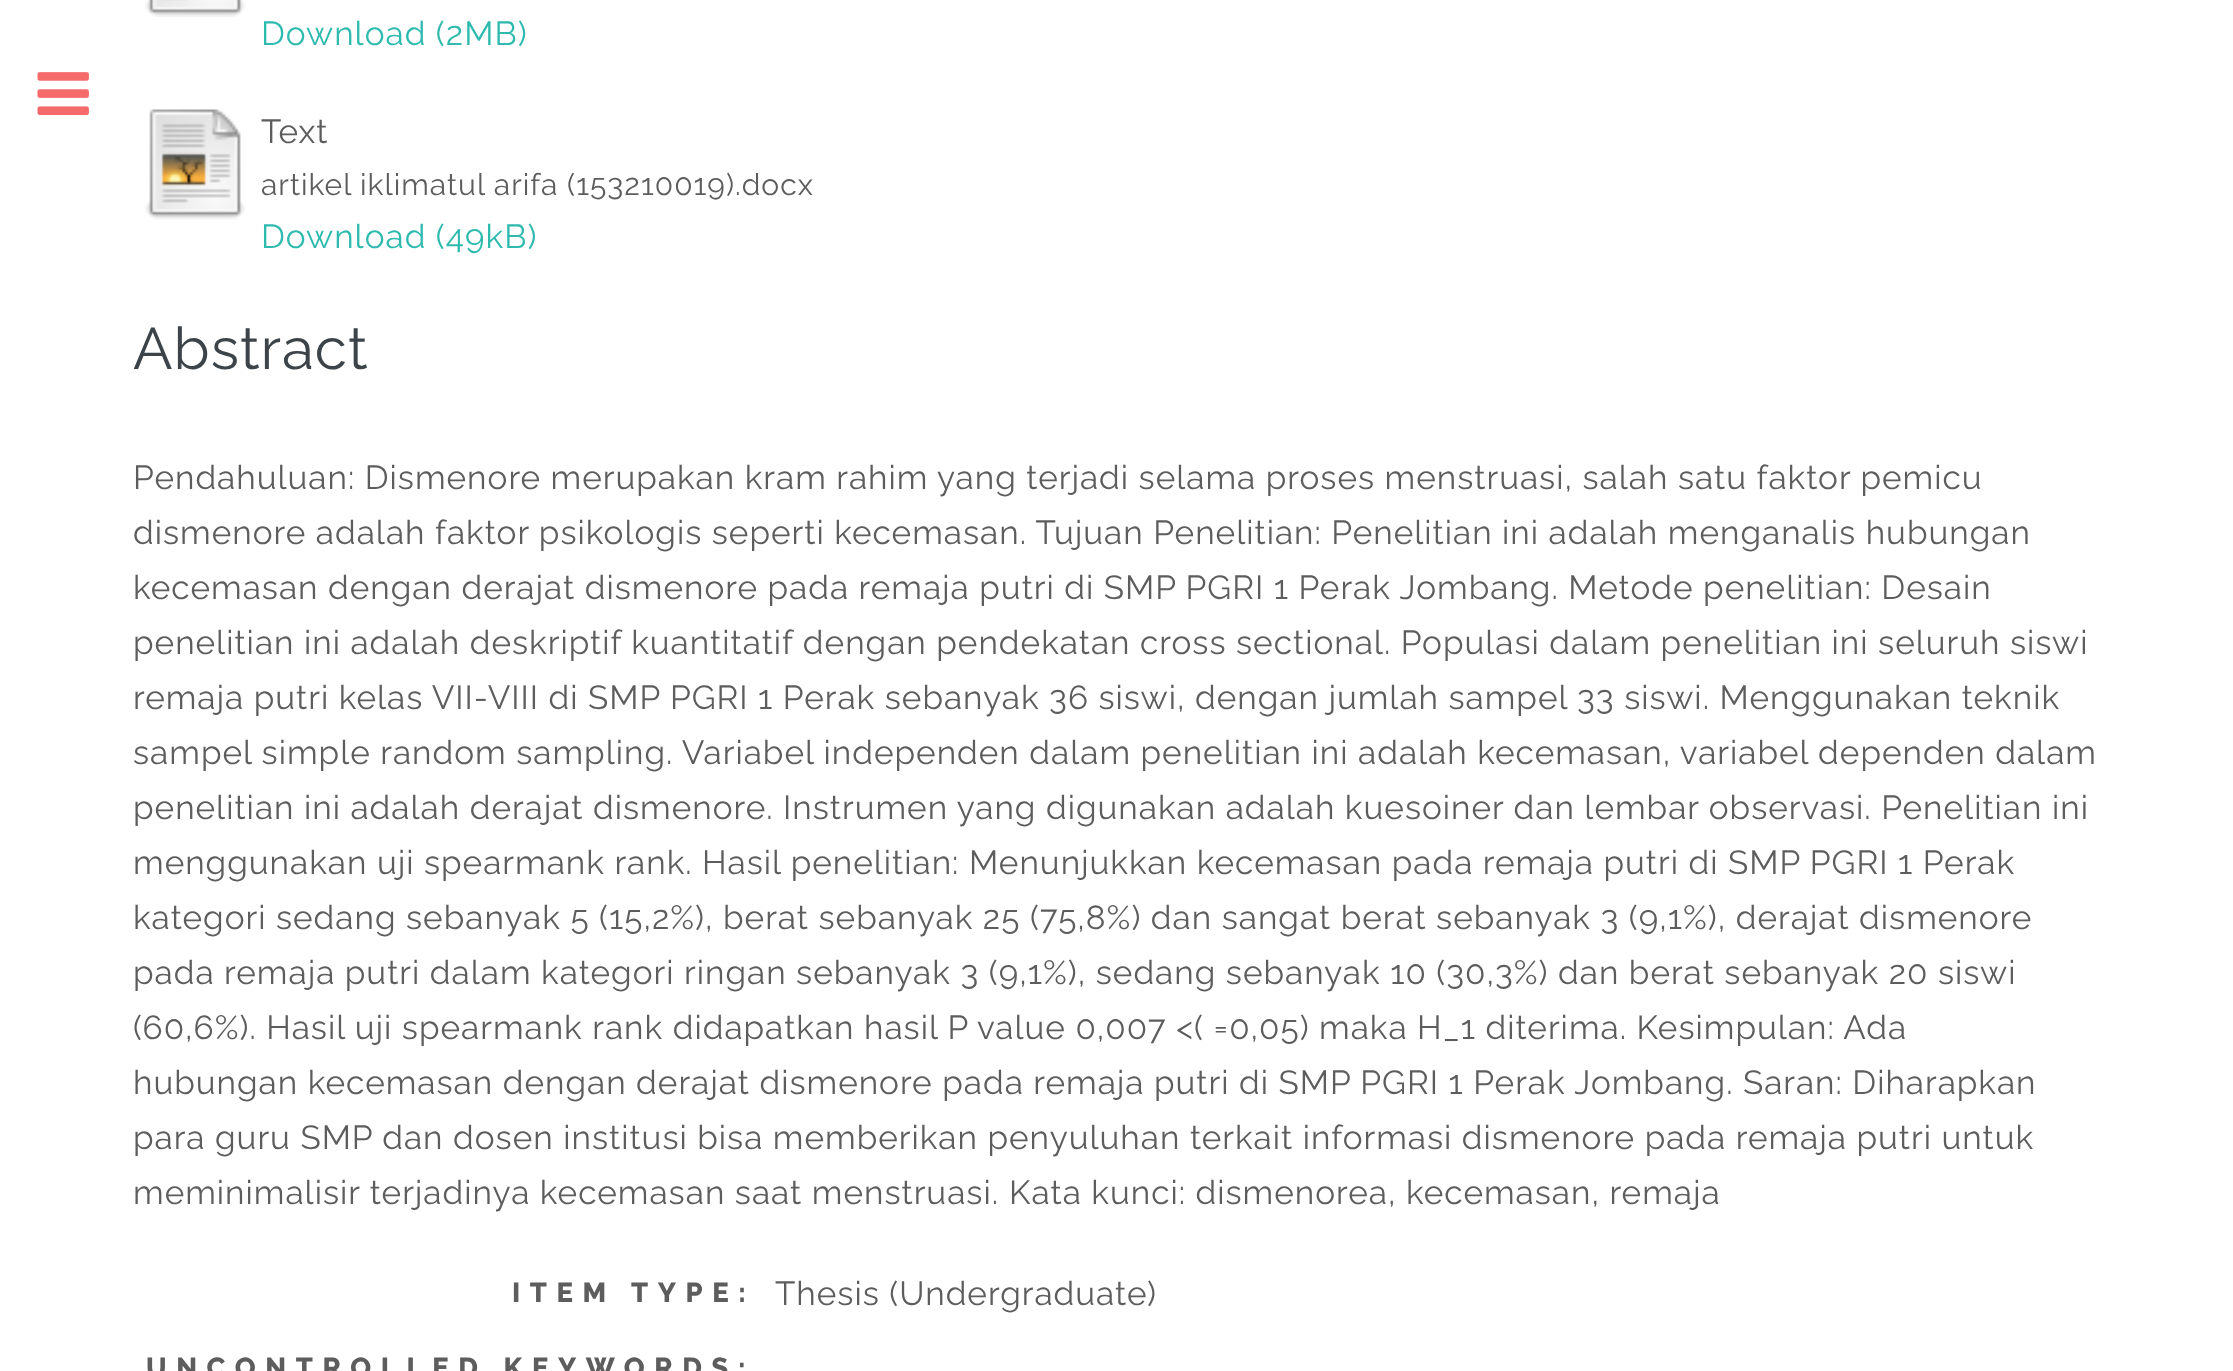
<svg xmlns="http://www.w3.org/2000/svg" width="2233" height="1371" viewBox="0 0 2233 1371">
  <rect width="100%" height="100%" fill="#fff"/>
  <image x="37" y="72" width="52" height="43" href="img/1.png"/>
  <image x="145" y="0" width="100" height="17" href="img/2.png"/>
  <image x="145" y="109" width="100" height="111" href="img/3.png"/>
  <text x="261" y="45" font-family="Raleway" font-size="33.33" letter-spacing="1" fill="#2ebaae">Download (2MB)</text>
  <text x="261" y="143" font-family="Raleway" font-size="33.33" letter-spacing="1" fill="#5d5d5d">Text</text>
  <text x="261" y="195" font-family="Raleway" font-size="30" letter-spacing="1" fill="#5d5d5d">artikel iklimatul arifa (153210019).docx</text>
  <text x="261" y="248" font-family="Raleway" font-size="33.33" letter-spacing="1" fill="#2ebaae">Download (49kB)</text>
  <text x="133" y="369" font-family="Raleway" font-size="58.5" letter-spacing="1" fill="#3d4449">Abstract</text>
  <g font-family="Raleway" font-size="33.33" letter-spacing="1" fill="#5d5d5d">
    <text x="133" y="489">Pendahuluan: Dismenore merupakan kram rahim yang terjadi selama proses menstruasi, salah satu faktor pemicu</text>
    <text x="133" y="544">dismenore adalah faktor psikologis seperti kecemasan. Tujuan Penelitian: Penelitian ini adalah menganalis hubungan</text>
    <text x="133" y="599">kecemasan dengan derajat dismenore pada remaja putri di SMP PGRI 1 Perak Jombang. Metode penelitian: Desain</text>
    <text x="133" y="654">penelitian ini adalah deskriptif kuantitatif dengan pendekatan cross sectional. Populasi dalam penelitian ini seluruh siswi</text>
    <text x="133" y="709">remaja putri kelas VII-VIII di SMP PGRI 1 Perak sebanyak 36 siswi, dengan jumlah sampel 33 siswi. Menggunakan teknik</text>
    <text x="133" y="764">sampel simple random sampling. Variabel independen dalam penelitian ini adalah kecemasan, variabel dependen dalam</text>
    <text x="133" y="819">penelitian ini adalah derajat dismenore. Instrumen yang digunakan adalah kuesoiner dan lembar observasi. Penelitian ini</text>
    <text x="133" y="874">menggunakan uji spearmank rank. Hasil penelitian: Menunjukkan kecemasan pada remaja putri di SMP PGRI 1 Perak</text>
    <text x="133" y="929">kategori sedang sebanyak 5 (15,2%), berat sebanyak 25 (75,8%) dan sangat berat sebanyak 3 (9,1%), derajat dismenore</text>
    <text x="133" y="984">pada remaja putri dalam kategori ringan sebanyak 3 (9,1%), sedang sebanyak 10 (30,3%) dan berat sebanyak 20 siswi</text>
    <text x="133" y="1039">(60,6%). Hasil uji spearmank rank didapatkan hasil P value 0,007 &lt;( =0,05) maka H_1 diterima. Kesimpulan: Ada</text>
    <text x="133" y="1094">hubungan kecemasan dengan derajat dismenore pada remaja putri di SMP PGRI 1 Perak Jombang. Saran: Diharapkan</text>
    <text x="133" y="1149">para guru SMP dan dosen institusi bisa memberikan penyuluhan terkait informasi dismenore pada remaja putri untuk</text>
    <text x="133" y="1204">meminimalisir terjadinya kecemasan saat menstruasi.</text>
    <text x="1009" y="1204">Kata kunci: dismenorea, kecemasan, remaja</text>
  </g>
  <text x="512" y="1302" font-family="Raleway" font-size="27.5" font-weight="800" letter-spacing="9.6" fill="#5d5d5d">ITEM TYPE:</text>
  <text x="775" y="1305" font-family="Raleway" font-size="33.33" letter-spacing="1" fill="#5d5d5d">Thesis (Undergraduate)</text>
  <text x="146" y="1377" font-family="Raleway" font-size="27.5" font-weight="800" letter-spacing="9.6" fill="#5d5d5d">UNCONTROLLED KEYWORDS:</text>
</svg>
